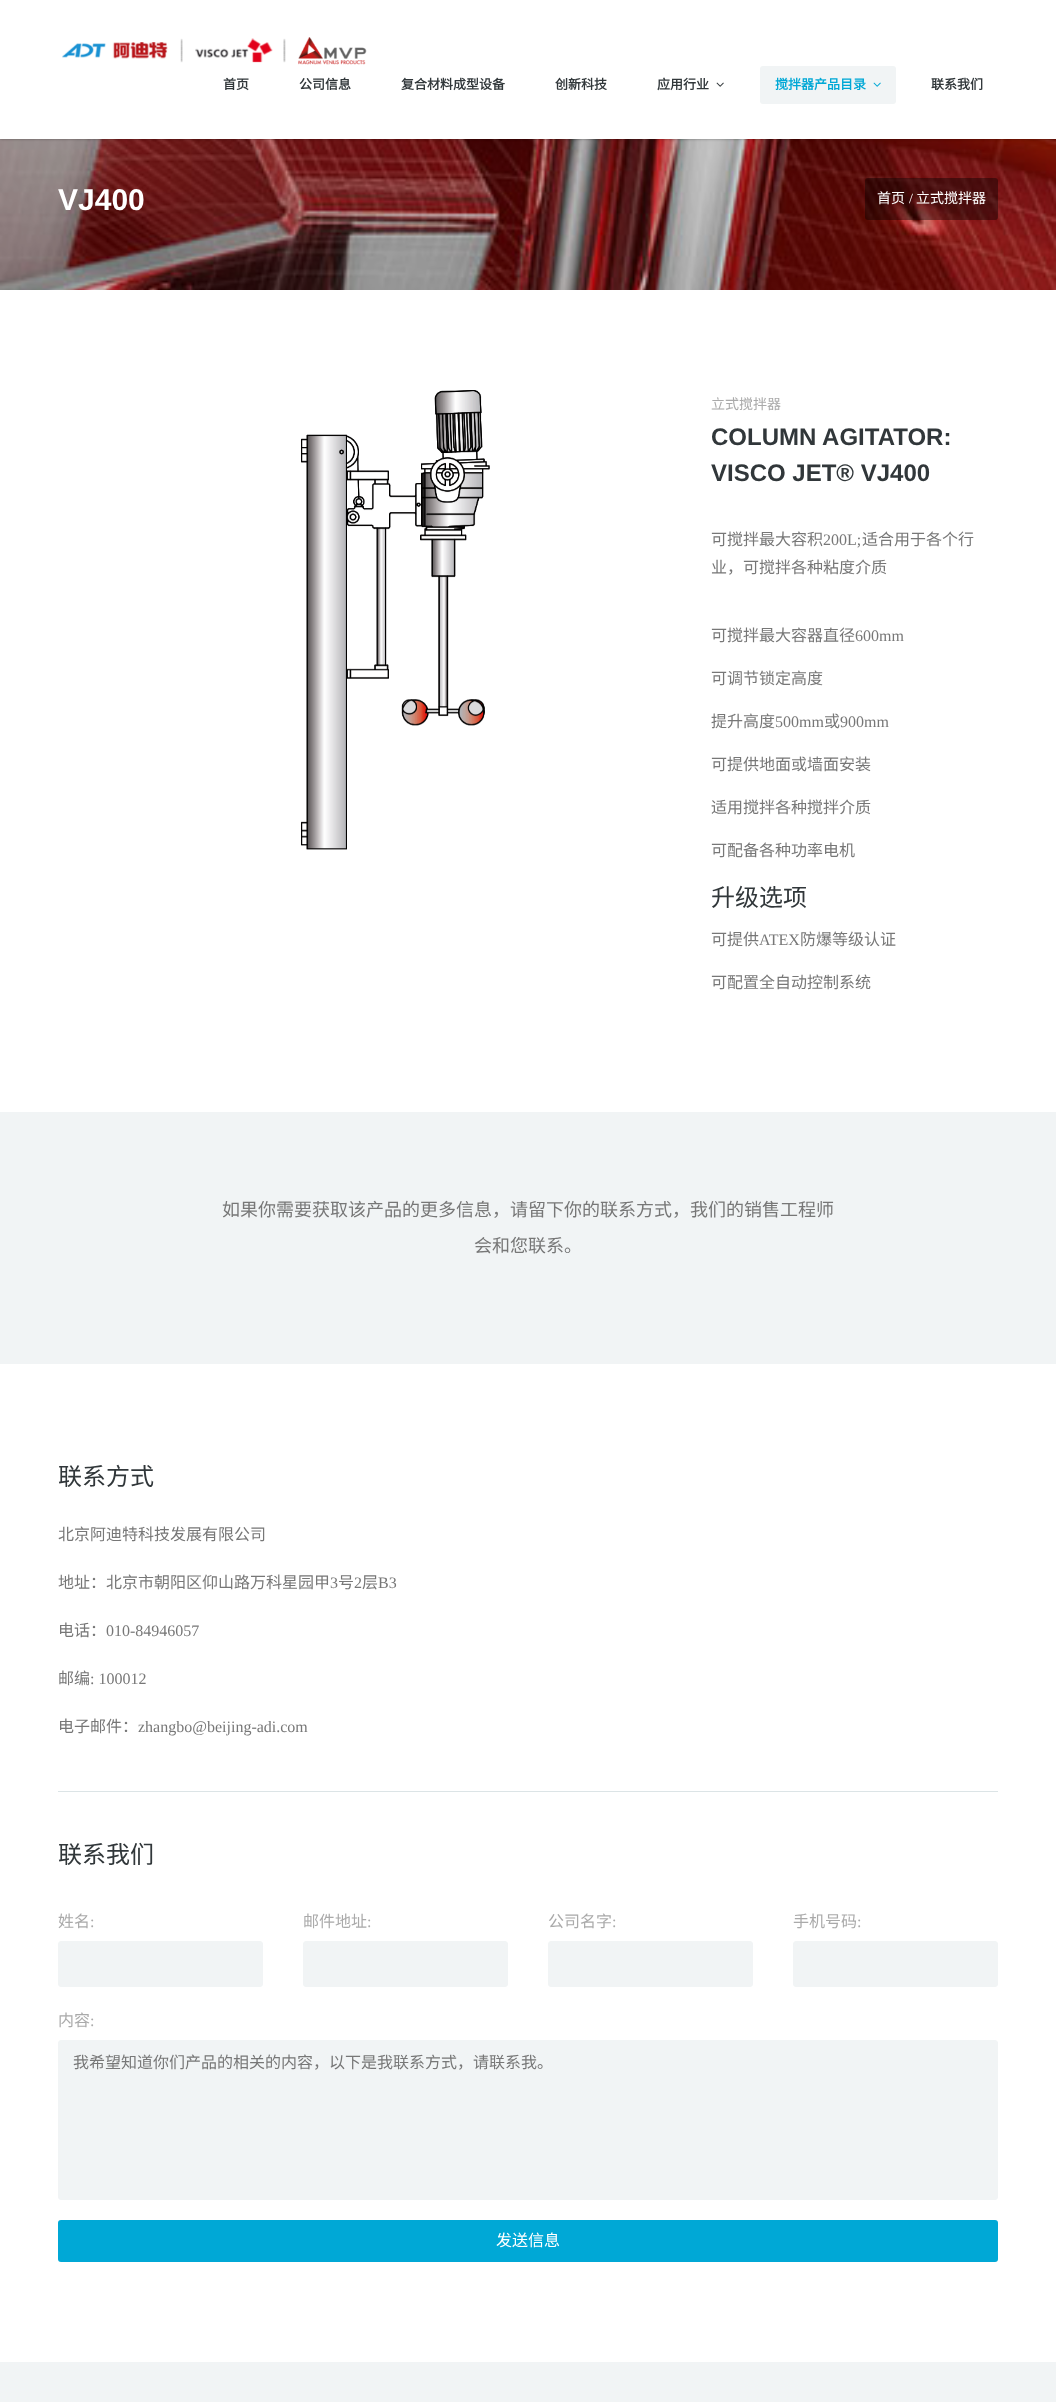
<svg xmlns="http://www.w3.org/2000/svg" width="1056" height="2402" viewBox="0 0 1056 2402">
  <rect width="100%" height="100%" fill="#fff"/>
  <image x="0" y="139" width="1056" height="151" href="img/4.png"/>
  <path d="M0 0h1056v139H0z" fill="#00000059" filter="blur(1.5px)"/>
  <path d="M0 0h1056v139H0z" fill="#fff"/>
  <image x="62" y="37" width="305" height="28" href="img/1.png"/>
  <image x="716" y="82" width="8" height="5" href="img/2.png"/>
  <rect x="760" y="66" width="136" height="38" rx="3" fill="#f1f4f5"/>
  <image x="873" y="82" width="8" height="5" href="img/3.png"/>
  <rect x="865" y="178" width="133" height="42" rx="3" fill="#00000066"/>
  <image x="301" y="390" width="189" height="460" href="img/5.png"/>
  <path d="M0 1112h1056v252H0z" fill="#f1f4f5"/>
  <path d="M58 1791h940v1H58z" fill="#dce4e6"/>
  <rect x="58.5" y="1941.5" width="204" height="45" rx="2.5" fill="#f1f4f5" stroke="#f1f4f5"/>
  <rect x="303.5" y="1941.5" width="204" height="45" rx="2.5" fill="#f1f4f5" stroke="#f1f4f5"/>
  <rect x="548.5" y="1941.5" width="204" height="45" rx="2.5" fill="#f1f4f5" stroke="#f1f4f5"/>
  <rect x="793.5" y="1941.5" width="204" height="45" rx="2.5" fill="#f1f4f5" stroke="#f1f4f5"/>
  <rect x="58.5" y="2040.5" width="939" height="159" rx="2.5" fill="#f1f4f5" stroke="#f1f4f5"/>
  <rect x="58" y="2220" width="940" height="42" rx="3" fill="#00a8d6"/>
  <path d="M0 2362h1056v40H0z" fill="#f1f4f5"/>
  <g font-family="Noto Sans CJK SC" font-size="13" font-weight="bold" fill="#31373a">
    <text x="223" y="89">首页</text>
    <text x="299" y="89">公司信息</text>
    <text x="401" y="89">复合材料成型设备</text>
    <text x="555" y="89">创新科技</text>
    <text x="657" y="89">应用行业</text>
  </g>
  <text x="775" y="89" font-family="Noto Sans CJK SC" font-size="13" font-weight="bold" fill="#00a8d6">搅拌器产品目录</text>
  <text x="931" y="89" font-family="Noto Sans CJK SC" font-size="13" font-weight="bold" fill="#31373a">联系我们</text>
  <text x="58" y="210" font-family="Liberation Sans" font-size="30" font-weight="bold" fill="#fff">VJ400</text>
  <text x="877" y="203" font-family="Noto Sans CJK SC" font-size="14" fill="#fff">首页</text>
  <text x="909" y="203" font-family="Liberation Serif" font-size="14" fill="#fff">/</text>
  <text x="916" y="203" font-family="Noto Sans CJK SC" font-size="14" fill="#fff">立式搅拌器</text>
  <text x="711" y="409" font-family="Noto Sans CJK SC" font-size="14" fill="#aaa">立式搅拌器</text>
  <g font-family="Liberation Sans" font-size="24" font-weight="bold" fill="#31373a">
    <text x="711" y="445">COLUMN AGITATOR:</text>
    <text x="711" y="481">VISCO JET® VJ400</text>
  </g>
  <text x="711" y="545" font-family="Noto Sans CJK SC" font-size="16" fill="#777">可搅拌最大容积</text>
  <text x="823" y="545" font-family="Liberation Serif" font-size="16" fill="#777">200L;</text>
  <g font-family="Noto Sans CJK SC" font-size="16" fill="#777">
    <text x="862" y="545">适合用于各个行</text>
    <text x="711" y="573">业，可搅拌各种粘度介质</text>
    <text x="711" y="641">可搅拌最大容器直径</text>
  </g>
  <text x="855" y="641" font-family="Liberation Serif" font-size="16" fill="#777">600mm</text>
  <g font-family="Noto Sans CJK SC" font-size="16" fill="#777">
    <text x="711" y="684">可调节锁定高度</text>
    <text x="711" y="727">提升高度</text>
  </g>
  <text x="775" y="727" font-family="Liberation Serif" font-size="16" fill="#777">500mm</text>
  <text x="824" y="727" font-family="Noto Sans CJK SC" font-size="16" fill="#777">或</text>
  <text x="840" y="727" font-family="Liberation Serif" font-size="16" fill="#777">900mm</text>
  <g font-family="Noto Sans CJK SC" font-size="16" fill="#777">
    <text x="711" y="770">可提供地面或墙面安装</text>
    <text x="711" y="813">适用搅拌各种搅拌介质</text>
    <text x="711" y="856">可配备各种功率电机</text>
  </g>
  <text x="711" y="906" font-family="Noto Sans CJK SC" font-size="24" fill="#31373a">升级选项</text>
  <text x="711" y="945" font-family="Noto Sans CJK SC" font-size="16" fill="#777">可提供</text>
  <text x="759" y="945" font-family="Liberation Serif" font-size="16" fill="#777">ATEX</text>
  <g font-family="Noto Sans CJK SC" font-size="16" fill="#777">
    <text x="800" y="945">防爆等级认证</text>
    <text x="711" y="988">可配置全自动控制系统</text>
  </g>
  <g font-family="Noto Sans CJK SC" font-size="18" fill="#777">
    <text x="222" y="1216">如果你需要获取该产品的更多信息，请留下你的联系方式，我们的销售工程师</text>
    <text x="474" y="1252">会和您联系。</text>
  </g>
  <text x="58" y="1485" font-family="Noto Sans CJK SC" font-size="24" fill="#31373a">联系方式</text>
  <g font-family="Noto Sans CJK SC" font-size="16" fill="#777">
    <text x="58" y="1540">北京阿迪特科技发展有限公司</text>
    <text x="58" y="1588">地址：北京市朝阳区仰山路万科星园甲</text>
  </g>
  <text x="330" y="1588" font-family="Liberation Serif" font-size="16" fill="#777">3</text>
  <text x="338" y="1588" font-family="Noto Sans CJK SC" font-size="16" fill="#777">号</text>
  <text x="354" y="1588" font-family="Liberation Serif" font-size="16" fill="#777">2</text>
  <text x="362" y="1588" font-family="Noto Sans CJK SC" font-size="16" fill="#777">层</text>
  <text x="378" y="1588" font-family="Liberation Serif" font-size="16" fill="#777">B3</text>
  <text x="58" y="1636" font-family="Noto Sans CJK SC" font-size="16" fill="#777">电话：</text>
  <text x="106" y="1636" font-family="Liberation Serif" font-size="16" fill="#777">010-84946057</text>
  <text x="58" y="1684" font-family="Noto Sans CJK SC" font-size="16" fill="#777">邮编</text>
  <text x="90" y="1684" font-family="Liberation Serif" font-size="16" fill="#777">: 100012</text>
  <text x="58" y="1732" font-family="Noto Sans CJK SC" font-size="16" fill="#777">电子邮件：</text>
  <text x="138" y="1732" font-family="Liberation Serif" font-size="16" fill="#777">zhangbo@beijing-adi.com</text>
  <text x="58" y="1863" font-family="Noto Sans CJK SC" font-size="24" fill="#31373a">联系我们</text>
  <text x="58" y="1927" font-family="Noto Sans CJK SC" font-size="16" fill="#aaa">姓名</text>
  <text x="90" y="1927" font-family="Liberation Serif" font-size="16" fill="#aaa">:</text>
  <text x="303" y="1927" font-family="Noto Sans CJK SC" font-size="16" fill="#aaa">邮件地址</text>
  <text x="367" y="1927" font-family="Liberation Serif" font-size="16" fill="#aaa">:</text>
  <text x="548" y="1927" font-family="Noto Sans CJK SC" font-size="16" fill="#aaa">公司名字</text>
  <text x="612" y="1927" font-family="Liberation Serif" font-size="16" fill="#aaa">:</text>
  <text x="793" y="1927" font-family="Noto Sans CJK SC" font-size="16" fill="#aaa">手机号码</text>
  <text x="857" y="1927" font-family="Liberation Serif" font-size="16" fill="#aaa">:</text>
  <text x="58" y="2026" font-family="Noto Sans CJK SC" font-size="16" fill="#aaa">内容</text>
  <text x="90" y="2026" font-family="Liberation Serif" font-size="16" fill="#aaa">:</text>
  <text x="73" y="2068" font-family="Noto Sans CJK SC" font-size="16" fill="#777">我希望知道你们产品的相关的内容，以下是我联系方式，请联系我。</text>
  <text x="496" y="2246" font-family="Noto Sans CJK SC" font-size="16" fill="#fff">发送信息</text>
</svg>
